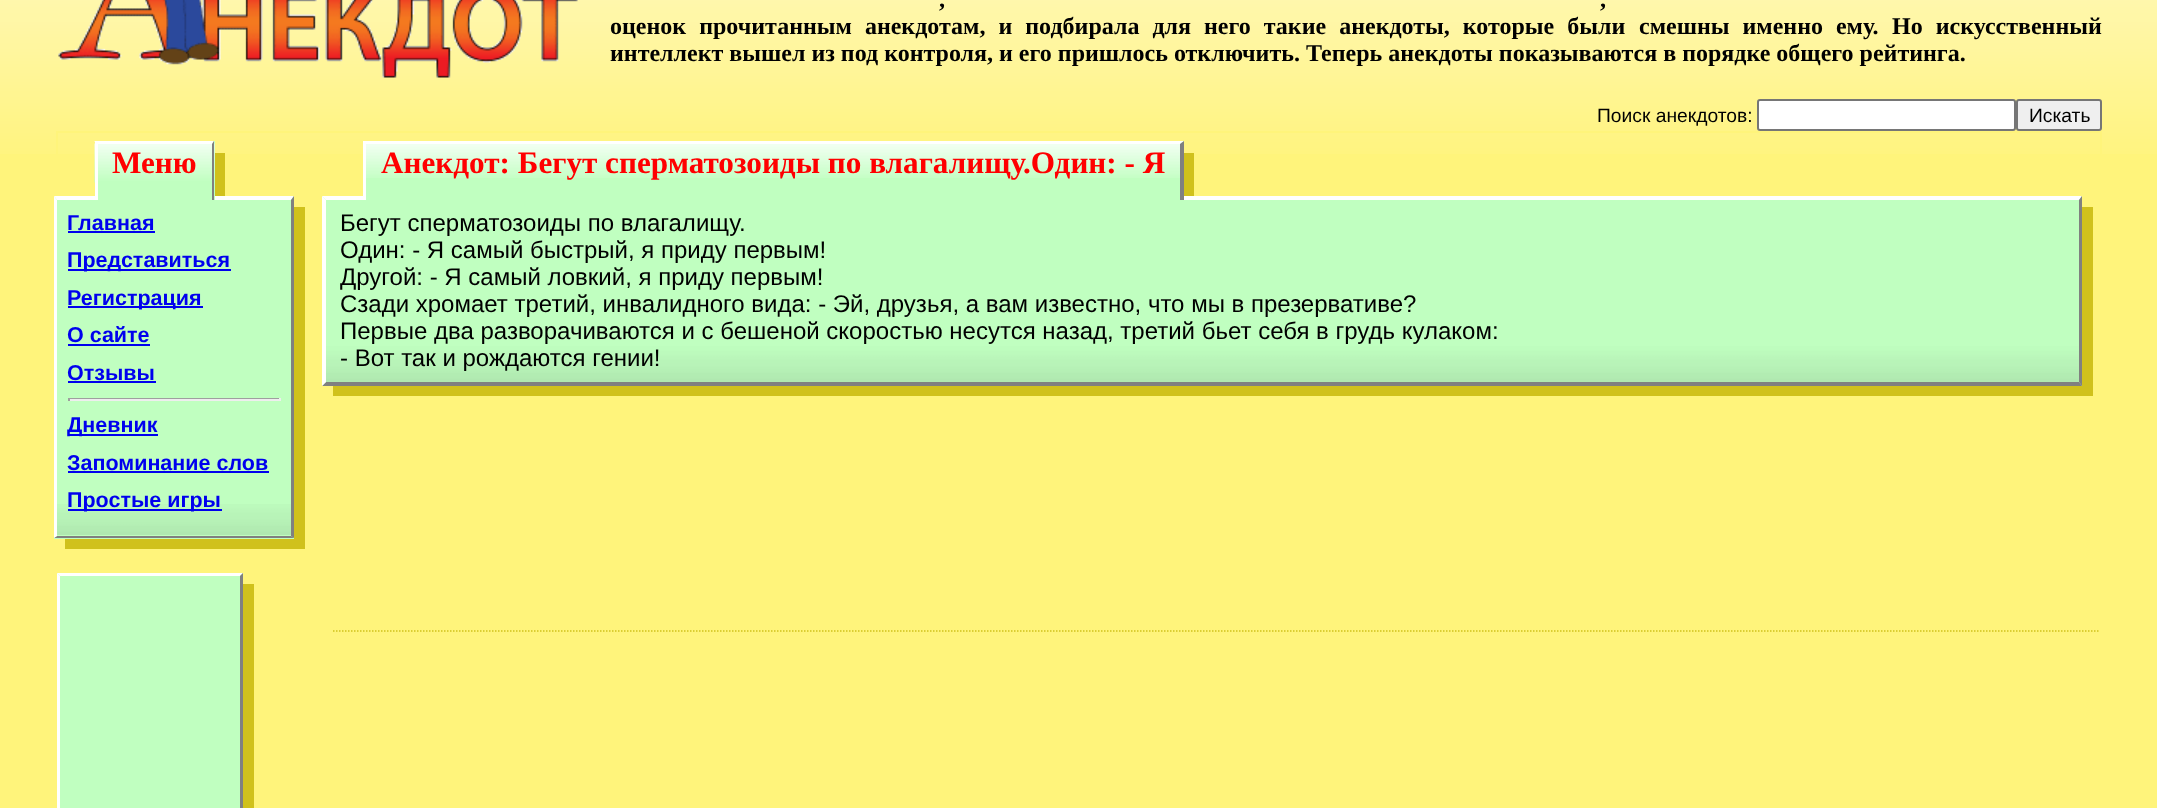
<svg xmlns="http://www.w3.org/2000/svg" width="2157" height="808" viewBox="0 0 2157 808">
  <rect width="100%" height="100%" fill="#fff47b"/>
  <image x="0" y="0" width="2157" height="154" href="img/1.png"/>
  <image x="58" y="0" width="520" height="78" href="img/2.png"/>
  <rect x="1758" y="100" width="257" height="30" rx="2" fill="#fff" stroke="#767676" stroke-width="2"/>
  <rect x="2017" y="100" width="84" height="30" rx="2" fill="#efefef" stroke="#767676" stroke-width="2"/>
  <path d="M57 132h2044v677H57z" fill="none" stroke="#fff47b" stroke-width="2"/>
  <path d="M65 207h240v342H65z" fill="#d0c11c"/>
  <path d="M54 197h240v342H54z" fill="#c0ffc0"/>
  <path d="M54 196H294L291 200H57Z" fill="#fff"/>
  <path d="M98 141h117v59H98z" fill="#c0ffc0"/>
  <image x="94" y="143" width="121" height="40" href="img/3.png"/>
  <path d="M94 141H214L212 144H98Z" fill="#fff"/>
  <path d="M214 141V200H212V144Z" fill="#808080"/>
  <path d="M95 141h3v59H95z" fill="#fff"/>
  <path d="M215 153h10v43H215z" fill="#d0c11c"/>
  <image x="57" y="504" width="234" height="31" href="img/4.png"/>
  <path d="M294 196V538L291 536V200Z" fill="#808080"/>
  <path d="M294 538H54L57 536H291Z" fill="#808080"/>
  <path d="M54 538V196L57 200V536Z" fill="#fff"/>
  <path d="M68 231h87v2H68z" fill="#00e"/>
  <path d="M68 269h163v2H68z" fill="#00e"/>
  <path d="M68 306h135v2H68z" fill="#00e"/>
  <path d="M68 344h82v2H68z" fill="#00e"/>
  <path d="M68 381h88v2H68z" fill="#00e"/>
  <path d="M68 398h213v1H68z" fill="#9f9f9f"/>
  <path d="M279 398h2v3H279z" fill="#eee"/>
  <path d="M68 399h213v2H68z" fill="#eee"/>
  <path d="M68 398h2v3H68z" fill="#9f9f9f"/>
  <path d="M68 434h90v2H68z" fill="#00e"/>
  <path d="M68 471h201v2H68z" fill="#00e"/>
  <path d="M68 509h154v2H68z" fill="#00e"/>
  <path d="M333 207h1760v189H333z" fill="#d0c11c"/>
  <path d="M323 197h1759v189H323z" fill="#c0ffc0"/>
  <path d="M322 196H2082L2079 200H326Z" fill="#fff"/>
  <path d="M366 141h818v59H366z" fill="#c0ffc0"/>
  <image x="366" y="143" width="816" height="35" href="img/5.png"/>
  <path d="M363 141H1184L1180 144H366Z" fill="#fff"/>
  <path d="M1184 141V200H1180V144Z" fill="#808080"/>
  <path d="M363 141h3v59H363z" fill="#fff"/>
  <path d="M1184 153h10v43H1184z" fill="#d0c11c"/>
  <image x="326" y="343" width="1753" height="39" href="img/6.png"/>
  <path d="M2082 196V386L2079 382V200Z" fill="#808080"/>
  <path d="M2082 386H322L326 382H2079Z" fill="#808080"/>
  <path d="M322 386V196L326 200V382Z" fill="#fff"/>
  <path d="M333 631H2100" fill="none" stroke="#d0c11c" stroke-width="1.5" stroke-dasharray="1.5 1.5"/>
  <path d="M68 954V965H254V584H243V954Z" fill="#d0c11c"/>
  <path d="M57 573h186v235H57z" fill="#c0ffc0"/>
  <path d="M57 573H243L240 576H60Z" fill="#fff"/>
  <path d="M243 573V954L240 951V576Z" fill="#808080"/>
  <path d="M57 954V573L60 576V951Z" fill="#fff"/>
  <g font-family="Liberation Serif" font-size="24" font-weight="bold" fill="#000">
    <text x="939" y="7" word-spacing="5">,</text>
    <text x="1600" y="7" word-spacing="5">,</text>
    <text x="610" y="34" word-spacing="7">оценок прочитанным анекдотам, и подбирала для него такие анекдоты, которые были</text>
    <text x="1639" y="34" word-spacing="7">смешны именно ему.</text>
    <text x="1892" y="34" word-spacing="7">Но искусственный</text>
    <text x="610" y="61">интеллект вышел из под контроля, и его пришлось отключить. Теперь анекдоты показываются в порядке общего рейтинга.</text>
  </g>
  <g font-family="Liberation Sans" font-size="19.25" fill="#000">
    <text x="1597" y="122">Поиск анекдотов:</text>
    <text x="2029" y="122">Искать</text>
  </g>
  <text x="112" y="173" font-family="Liberation Serif" font-size="31.2" font-weight="bold" fill="#f00">Меню</text>
  <g font-family="Liberation Sans" font-size="21.5" font-weight="bold" fill="#00e">
    <text x="67" y="230">Главная</text>
    <text x="67" y="267">Представиться</text>
    <text x="67" y="305">Регистрация</text>
    <text x="67" y="342">О сайте</text>
    <text x="67" y="380">Отзывы</text>
    <text x="67" y="432">Дневник</text>
    <text x="67" y="470">Запоминание слов</text>
    <text x="67" y="507">Простые игры</text>
  </g>
  <text x="381" y="173" font-family="Liberation Serif" font-size="31.2" font-weight="bold" fill="#f00">Анекдот: Бегут сперматозоиды по влагалищу.Один: - Я</text>
  <g font-family="Liberation Sans" font-size="24" fill="#000">
    <text x="340" y="231">Бегут сперматозоиды по влагалищу.</text>
    <text x="340" y="258">Один: - Я самый быстрый, я приду первым!</text>
    <text x="340" y="285">Другой: - Я самый ловкий, я приду первым!</text>
    <text x="340" y="312">Сзади хромает третий, инвалидного вида: - Эй, друзья, а вам известно, что мы в презервативе?</text>
    <text x="340" y="339">Первые два разворачиваются и с бешеной скоростью несутся назад, третий бьет себя в грудь кулаком:</text>
    <text x="340" y="366">- Вот так и рождаются гении!</text>
  </g>
</svg>
